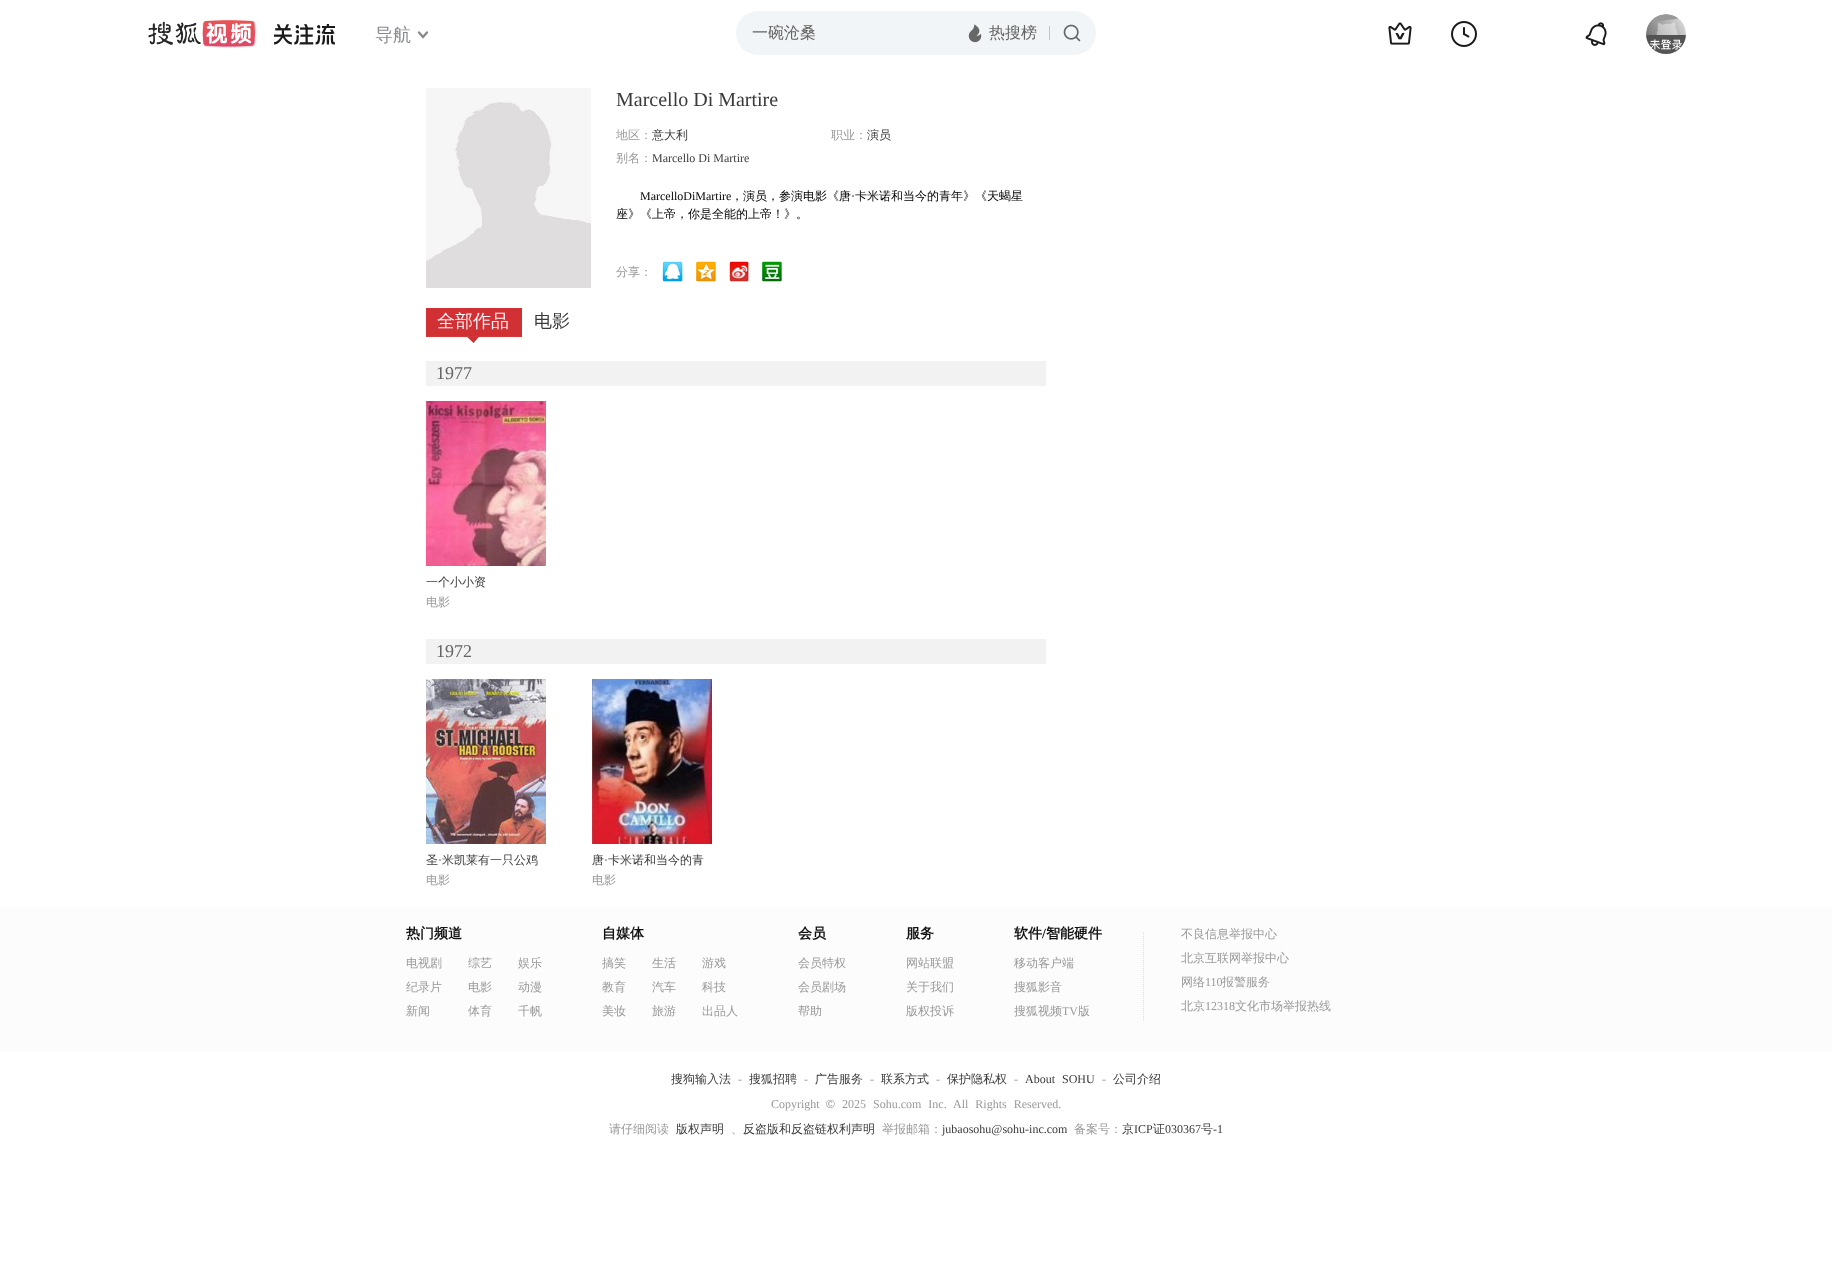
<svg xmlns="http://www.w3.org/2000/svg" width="1832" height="1276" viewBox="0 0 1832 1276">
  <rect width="100%" height="100%" fill="#fff"/>
  <image x="148" y="20" width="109" height="28" href="img/1.png"/>
  <image x="274" y="24" width="61" height="21" href="img/2.png"/>
  <path d="M419 32.5L423 37L427 32.5" fill="none" stroke="#888a8e" stroke-width="2.4" stroke-linecap="round"/>
  <rect x="736" y="11" width="360" height="44" rx="22" fill="#f2f5f7"/>
  <image x="968" y="24" width="14" height="19" href="img/3.png"/>
  <path d="M1049 26h1v14H1049z" fill="#c2c4c6"/>
  <image x="1063" y="24" width="18" height="18" href="img/4.png"/>
  <image x="1388" y="22" width="24" height="23" href="img/5.png"/>
  <image x="1451" y="21" width="26" height="26" href="img/6.png"/>
  <image x="1585" y="22" width="22" height="24" href="img/7.png"/>
  <image x="1646" y="14" width="40" height="40" href="img/8.png"/>
  <image x="426" y="88" width="165" height="200" href="img/9.png"/>
  <image x="662" y="261" width="21" height="21" href="img/10.png"/>
  <image x="696" y="261" width="20" height="21" href="img/11.png"/>
  <image x="729" y="261" width="20" height="21" href="img/12.png"/>
  <image x="762" y="261" width="20" height="21" href="img/13.png"/>
  <image x="426" y="308" width="96" height="29" href="img/14.png"/>
  <image x="467" y="337" width="12" height="6" href="img/15.png"/>
  <path d="M426 361h620v25H426z" fill="#f2f2f2"/>
  <image x="426" y="401" width="120" height="165" href="img/16.png"/>
  <path d="M426 639h620v25H426z" fill="#f2f2f2"/>
  <image x="426" y="679" width="120" height="165" href="img/17.png"/>
  <image x="592" y="679" width="120" height="165" href="img/18.png"/>
  <path d="M0 907h1832v145H0z" fill="#fcfcfc"/>
  <path d="M1143.5 932V1022" fill="none" stroke="#ddd" stroke-dasharray="1 1"/>
  <text x="375" y="41" font-family="WenQuanYi Zen Hei" font-size="18" font-weight="500" fill="#888a8e">导航</text>
  <g font-family="WenQuanYi Zen Hei" font-size="16" font-weight="500" fill="#646464">
    <text x="752" y="38">一碗沧桑</text>
    <text x="989" y="38">热搜榜</text>
  </g>
  <text x="616" y="106" font-family="Liberation Serif" font-size="20" fill="#3a3a3a">Marcello Di Martire</text>
  <text x="616" y="139" font-family="WenQuanYi Zen Hei" font-size="12" font-weight="500" fill="#999">地区：</text>
  <text x="652" y="139" font-family="WenQuanYi Zen Hei" font-size="12" font-weight="500" fill="#3a3a3a">意大利</text>
  <text x="831" y="139" font-family="WenQuanYi Zen Hei" font-size="12" font-weight="500" fill="#999">职业：</text>
  <text x="867" y="139" font-family="WenQuanYi Zen Hei" font-size="12" font-weight="500" fill="#3a3a3a">演员</text>
  <text x="616" y="162" font-family="WenQuanYi Zen Hei" font-size="12" font-weight="500" fill="#999">别名：</text>
  <text x="652" y="162" font-family="Liberation Serif" font-size="12" fill="#3a3a3a">Marcello Di Martire</text>
  <text x="640" y="200" font-family="Liberation Serif" font-size="12" fill="#000">MarcelloDiMartire</text>
  <text x="731" y="200" font-family="WenQuanYi Zen Hei" font-size="12" font-weight="500" fill="#000">，演员，参演电影《唐</text>
  <text x="851" y="200" font-family="Liberation Serif" font-size="12" fill="#000">·</text>
  <g font-family="WenQuanYi Zen Hei" font-size="12" font-weight="500" fill="#000">
    <text x="855" y="200">卡米诺和当今的青年》《天蝎星</text>
    <text x="616" y="218">座》《上帝，你是全能的上帝！》。</text>
  </g>
  <text x="616" y="276" font-family="WenQuanYi Zen Hei" font-size="12" font-weight="500" fill="#999">分享：</text>
  <text x="437" y="327" font-family="WenQuanYi Zen Hei" font-size="18" font-weight="500" fill="#fff0f3">全部作品</text>
  <text x="534" y="327" font-family="WenQuanYi Zen Hei" font-size="18" font-weight="500" fill="#3a3a3a">电影</text>
  <text x="436" y="379" font-family="Liberation Serif" font-size="18" fill="#646464">1977</text>
  <text x="426" y="586" font-family="WenQuanYi Zen Hei" font-size="12" font-weight="500" fill="#3a3a3a">一个小小资</text>
  <text x="426" y="606" font-family="WenQuanYi Zen Hei" font-size="12" font-weight="500" fill="#999">电影</text>
  <text x="436" y="657" font-family="Liberation Serif" font-size="18" fill="#646464">1972</text>
  <text x="426" y="864" font-family="WenQuanYi Zen Hei" font-size="12" font-weight="500" fill="#3a3a3a">圣</text>
  <text x="438" y="864" font-family="Liberation Serif" font-size="12" fill="#3a3a3a">·</text>
  <text x="442" y="864" font-family="WenQuanYi Zen Hei" font-size="12" font-weight="500" fill="#3a3a3a">米凯莱有一只公鸡</text>
  <text x="426" y="884" font-family="WenQuanYi Zen Hei" font-size="12" font-weight="500" fill="#999">电影</text>
  <text x="592" y="864" font-family="WenQuanYi Zen Hei" font-size="12" font-weight="500" fill="#3a3a3a">唐</text>
  <text x="604" y="864" font-family="Liberation Serif" font-size="12" fill="#3a3a3a">·</text>
  <text x="608" y="864" font-family="WenQuanYi Zen Hei" font-size="12" font-weight="500" fill="#3a3a3a">卡米诺和当今的青</text>
  <text x="592" y="884" font-family="WenQuanYi Zen Hei" font-size="12" font-weight="500" fill="#999">电影</text>
  <text x="406" y="938" font-family="WenQuanYi Zen Hei" font-size="14" font-weight="bold" fill="#111">热门频道</text>
  <g font-family="WenQuanYi Zen Hei" font-size="12" font-weight="500" fill="#999">
    <text x="406" y="967">电视剧</text>
    <text x="406" y="991">纪录片</text>
    <text x="406" y="1015">新闻</text>
    <text x="468" y="967">综艺</text>
    <text x="468" y="991">电影</text>
    <text x="468" y="1015">体育</text>
    <text x="518" y="967">娱乐</text>
    <text x="518" y="991">动漫</text>
    <text x="518" y="1015">千帆</text>
  </g>
  <text x="602" y="938" font-family="WenQuanYi Zen Hei" font-size="14" font-weight="bold" fill="#111">自媒体</text>
  <g font-family="WenQuanYi Zen Hei" font-size="12" font-weight="500" fill="#999">
    <text x="602" y="967">搞笑</text>
    <text x="602" y="991">教育</text>
    <text x="602" y="1015">美妆</text>
    <text x="652" y="967">生活</text>
    <text x="652" y="991">汽车</text>
    <text x="652" y="1015">旅游</text>
    <text x="702" y="967">游戏</text>
    <text x="702" y="991">科技</text>
    <text x="702" y="1015">出品人</text>
  </g>
  <text x="798" y="938" font-family="WenQuanYi Zen Hei" font-size="14" font-weight="bold" fill="#111">会员</text>
  <g font-family="WenQuanYi Zen Hei" font-size="12" font-weight="500" fill="#999">
    <text x="798" y="967">会员特权</text>
    <text x="798" y="991">会员剧场</text>
    <text x="798" y="1015">帮助</text>
  </g>
  <text x="906" y="938" font-family="WenQuanYi Zen Hei" font-size="14" font-weight="bold" fill="#111">服务</text>
  <g font-family="WenQuanYi Zen Hei" font-size="12" font-weight="500" fill="#999">
    <text x="906" y="967">网站联盟</text>
    <text x="906" y="991">关于我们</text>
    <text x="906" y="1015">版权投诉</text>
  </g>
  <text x="1014" y="938" font-family="WenQuanYi Zen Hei" font-size="14" font-weight="bold" fill="#111">软件</text>
  <text x="1042" y="938" font-family="Liberation Serif" font-size="14" font-weight="bold" fill="#111">/</text>
  <text x="1046" y="938" font-family="WenQuanYi Zen Hei" font-size="14" font-weight="bold" fill="#111">智能硬件</text>
  <g font-family="WenQuanYi Zen Hei" font-size="12" font-weight="500" fill="#999">
    <text x="1014" y="967">移动客户端</text>
    <text x="1014" y="991">搜狐影音</text>
    <text x="1014" y="1015">搜狐视频</text>
  </g>
  <text x="1062" y="1015" font-family="Liberation Serif" font-size="12" fill="#999">TV</text>
  <g font-family="WenQuanYi Zen Hei" font-size="12" font-weight="500" fill="#999">
    <text x="1078" y="1015">版</text>
    <text x="1181" y="938">不良信息举报中心</text>
    <text x="1181" y="962">北京互联网举报中心</text>
    <text x="1181" y="986">网络</text>
  </g>
  <text x="1205" y="986" font-family="Liberation Serif" font-size="12" fill="#999">110</text>
  <g font-family="WenQuanYi Zen Hei" font-size="12" font-weight="500" fill="#999">
    <text x="1222" y="986">报警服务</text>
    <text x="1181" y="1010">北京</text>
  </g>
  <text x="1205" y="1010" font-family="Liberation Serif" font-size="12" fill="#999">12318</text>
  <text x="1235" y="1010" font-family="WenQuanYi Zen Hei" font-size="12" font-weight="500" fill="#999">文化市场举报热线</text>
  <text x="671" y="1083" font-family="WenQuanYi Zen Hei" font-size="12" font-weight="500" fill="#3a3a3a">搜狗输入法</text>
  <text x="738" y="1083" font-family="Liberation Serif" font-size="12" fill="#999">-</text>
  <text x="749" y="1083" font-family="WenQuanYi Zen Hei" font-size="12" font-weight="500" fill="#3a3a3a">搜狐招聘</text>
  <text x="804" y="1083" font-family="Liberation Serif" font-size="12" fill="#999">-</text>
  <text x="815" y="1083" font-family="WenQuanYi Zen Hei" font-size="12" font-weight="500" fill="#3a3a3a">广告服务</text>
  <text x="870" y="1083" font-family="Liberation Serif" font-size="12" fill="#999">-</text>
  <text x="881" y="1083" font-family="WenQuanYi Zen Hei" font-size="12" font-weight="500" fill="#3a3a3a">联系方式</text>
  <text x="936" y="1083" font-family="Liberation Serif" font-size="12" fill="#999">-</text>
  <text x="947" y="1083" font-family="WenQuanYi Zen Hei" font-size="12" font-weight="500" fill="#3a3a3a">保护隐私权</text>
  <text x="1014" y="1083" font-family="Liberation Serif" font-size="12" fill="#999">-</text>
  <text x="1025" y="1083" word-spacing="4" font-family="Liberation Serif" font-size="12" fill="#3a3a3a">About SOHU</text>
  <text x="1102" y="1083" font-family="Liberation Serif" font-size="12" fill="#999">-</text>
  <text x="1113" y="1083" font-family="WenQuanYi Zen Hei" font-size="12" font-weight="500" fill="#3a3a3a">公司介绍</text>
  <text x="771" y="1108" font-family="Liberation Serif" font-size="12" fill="#999">Copyright</text>
  <text x="826" y="1108" font-family="Liberation Sans" font-size="12" fill="#999">©</text>
  <g font-family="Liberation Serif" font-size="12" fill="#999">
    <text x="842" y="1108">2025</text>
    <text x="873" y="1108" word-spacing="4">Sohu.com Inc. All Rights Reserved.</text>
  </g>
  <text x="609" y="1133" font-family="WenQuanYi Zen Hei" font-size="12" font-weight="500" fill="#999">请仔细阅读</text>
  <g font-family="WenQuanYi Zen Hei" font-size="12" font-weight="500" fill="#3a3a3a">
    <text x="676" y="1133">版权声明</text>
    <text x="743" y="1133">反盗版和反盗链权利声明</text>
  </g>
  <text x="882" y="1133" font-family="WenQuanYi Zen Hei" font-size="12" font-weight="500" fill="#999">举报邮箱：</text>
  <text x="942" y="1133" font-family="Liberation Serif" font-size="12" fill="#3a3a3a">jubaosohu@sohu-inc.com</text>
  <text x="1074" y="1133" font-family="WenQuanYi Zen Hei" font-size="12" font-weight="500" fill="#999">备案号：</text>
  <text x="1122" y="1133" font-family="WenQuanYi Zen Hei" font-size="12" font-weight="500" fill="#3a3a3a">京</text>
  <text x="1134" y="1133" font-family="Liberation Serif" font-size="12" fill="#3a3a3a">ICP</text>
  <text x="1153" y="1133" font-family="WenQuanYi Zen Hei" font-size="12" font-weight="500" fill="#3a3a3a">证</text>
  <text x="1165" y="1133" font-family="Liberation Serif" font-size="12" fill="#3a3a3a">030367</text>
  <text x="1201" y="1133" font-family="WenQuanYi Zen Hei" font-size="12" font-weight="500" fill="#3a3a3a">号</text>
  <text x="1213" y="1133" font-family="Liberation Serif" font-size="12" fill="#3a3a3a">-1</text>
  <text x="731" y="1133" font-family="WenQuanYi Zen Hei" font-size="12" font-weight="500" fill="#999">、</text>
</svg>
